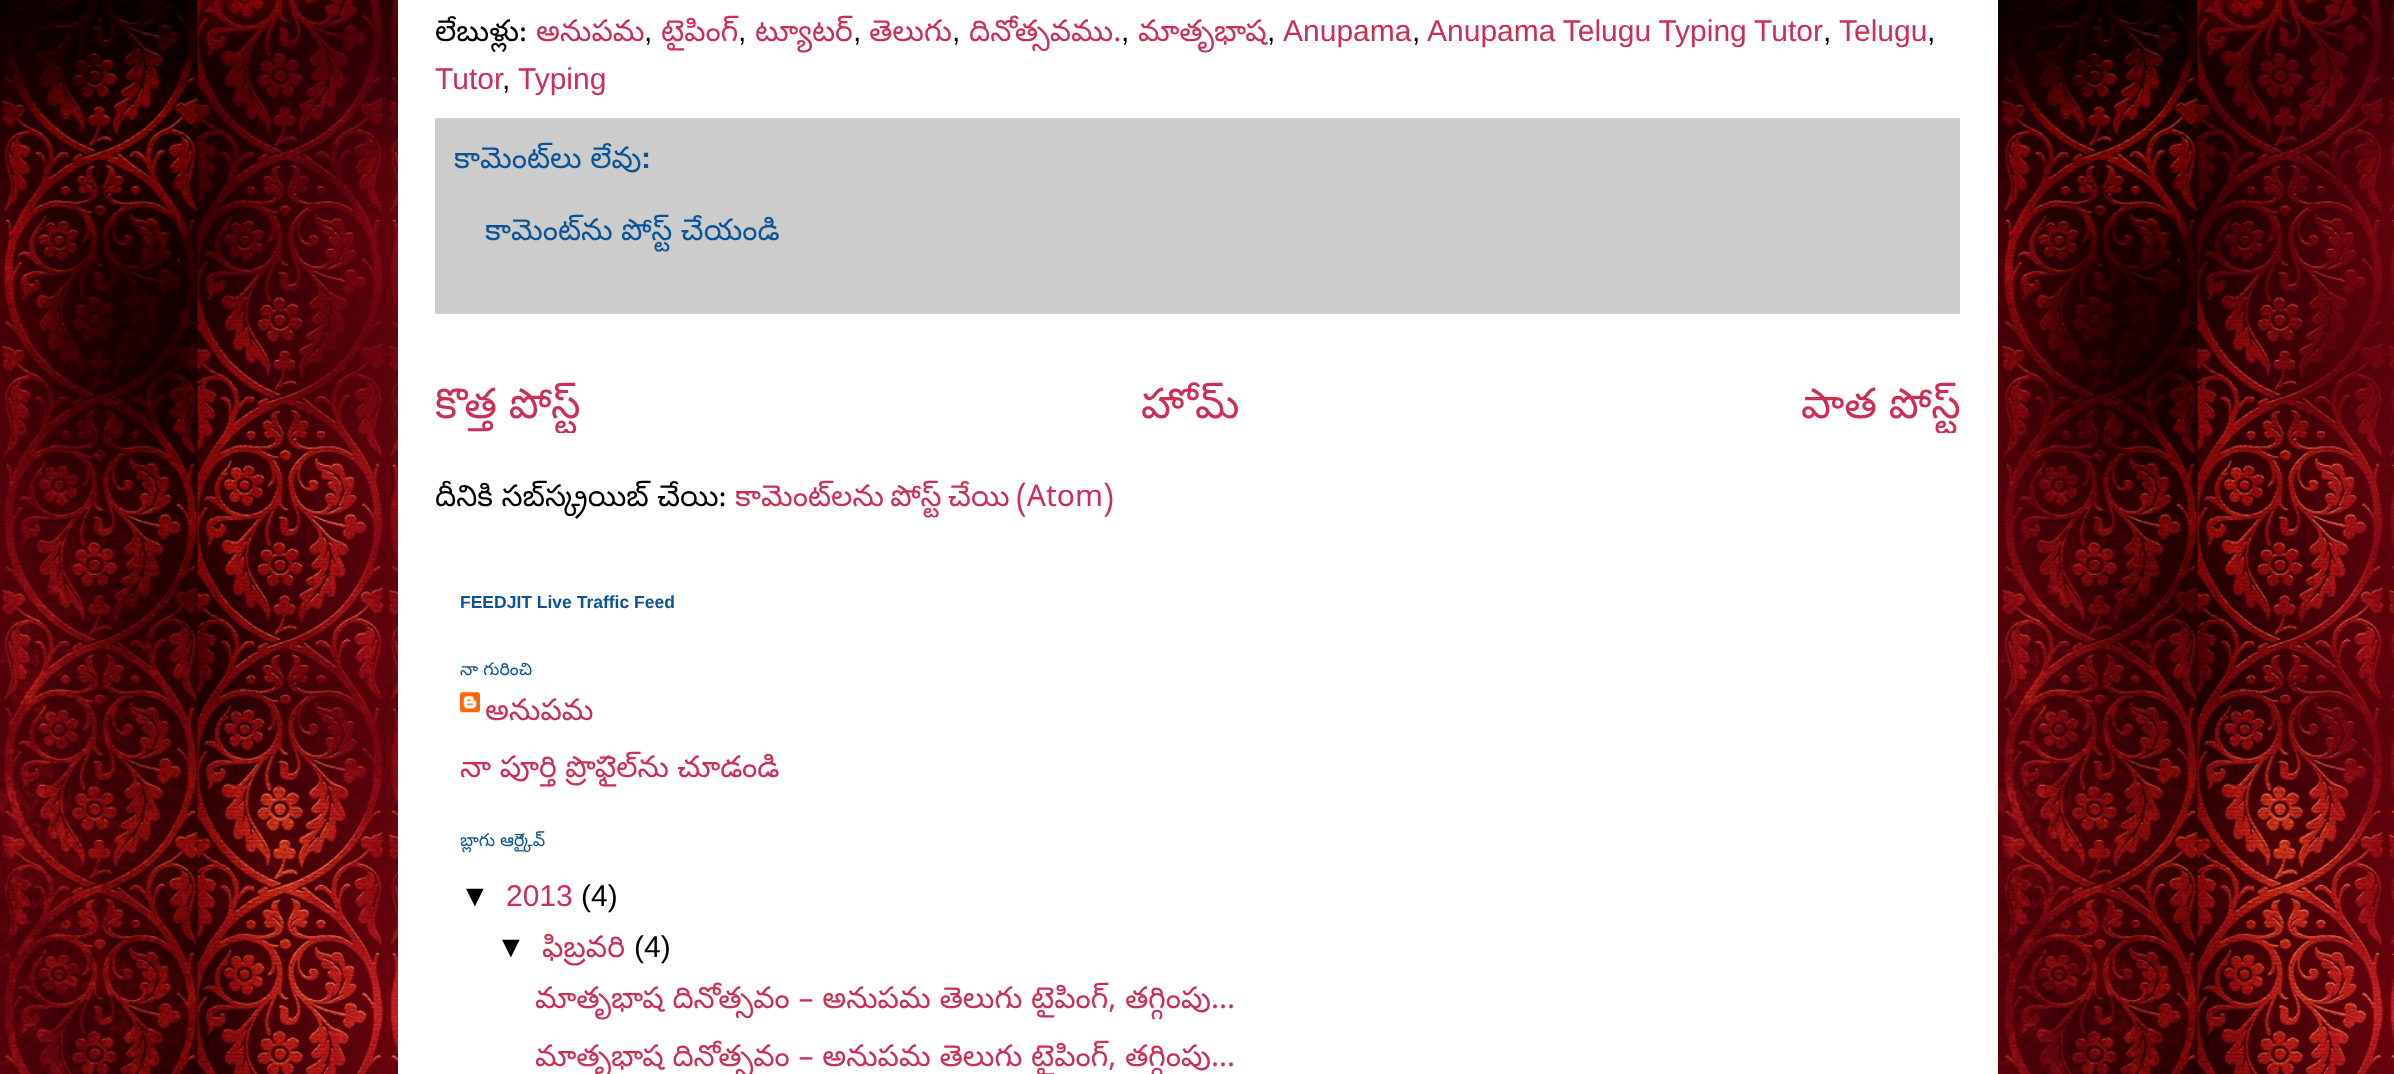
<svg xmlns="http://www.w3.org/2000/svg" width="2394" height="1074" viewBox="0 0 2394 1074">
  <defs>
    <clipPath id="clip1"><path d="M435 374h1525v59H435z"/></clipPath>
  </defs>
  <rect width="100%" height="100%" fill="#fff"/>
  <image x="0" y="0" width="2394" height="1074" href="img/1.png"/>
  <path d="M398 0h1600v1074H398z" fill="#fff"/>
  <path d="M435 118h1525v196H435z" fill="#ccc"/>
  <image x="460" y="692" width="20" height="21" href="img/2.png"/>
  <text x="435" y="41" font-family="Noto Sans Telugu" font-size="30" fill="#000">లేబుళ్లు:</text>
  <text x="536" y="41" font-family="Noto Sans Telugu" font-size="30" fill="#cb3053">అనుపమ</text>
  <text x="644" y="41" font-family="Liberation Sans" font-size="30" fill="#000">,</text>
  <text x="661" y="41" font-family="Noto Sans Telugu" font-size="30" fill="#cb3053">టైపింగ్</text>
  <text x="738" y="41" font-family="Liberation Sans" font-size="30" fill="#000">,</text>
  <text x="755" y="41" font-family="Noto Sans Telugu" font-size="30" fill="#cb3053">ట్యూటర్</text>
  <text x="853" y="41" font-family="Liberation Sans" font-size="30" fill="#000">,</text>
  <text x="869" y="41" font-family="Noto Sans Telugu" font-size="30" fill="#cb3053">తెలుగు</text>
  <text x="952" y="41" font-family="Liberation Sans" font-size="30" fill="#000">,</text>
  <text x="969" y="41" font-family="Noto Sans Telugu" font-size="30" fill="#cb3053">దినోత్సవము.</text>
  <text x="1121" y="41" font-family="Liberation Sans" font-size="30" fill="#000">,</text>
  <text x="1138" y="41" font-family="Noto Sans Telugu" font-size="30" fill="#cb3053">మాతృభాష</text>
  <text x="1267" y="41" font-family="Liberation Sans" font-size="30" fill="#000">,</text>
  <text x="1283" y="41" font-family="Liberation Sans" font-size="30" fill="#cb3053">Anupama</text>
  <text x="1412" y="41" font-family="Liberation Sans" font-size="30" fill="#000">,</text>
  <text x="1427" y="41" word-spacing="-0.5" font-family="Liberation Sans" font-size="30" fill="#cb3053">Anupama Telugu Typing Tutor</text>
  <text x="1823" y="41" font-family="Liberation Sans" font-size="30" fill="#000">,</text>
  <text x="1839" y="41" font-family="Liberation Sans" font-size="30" fill="#cb3053">Telugu</text>
  <text x="1927" y="41" font-family="Liberation Sans" font-size="30" fill="#000">,</text>
  <text x="435" y="89" font-family="Liberation Sans" font-size="30" fill="#cb3053">Tutor</text>
  <text x="502" y="89" font-family="Liberation Sans" font-size="30" fill="#000">,</text>
  <text x="518" y="89" font-family="Liberation Sans" font-size="30" fill="#cb3053">Typing</text>
  <g font-family="Noto Sans Telugu" font-size="30" fill="#0b5394">
    <text x="454" y="168">కామెంట్</text>
    <text x="550" y="168">లు లేవు</text>
  </g>
  <text x="641" y="168" font-family="Liberation Sans" font-size="30" font-weight="bold" fill="#0b5394">:</text>
  <text x="485" y="240" font-family="Noto Sans Telugu" font-size="30" fill="#0b5394">కామెంట్‌ను పోస్ట్ చేయండి</text>
  <g clip-path="url(#clip1)">
    <text x="435" y="418" font-family="Noto Sans Telugu" font-size="42" fill="#cb3053">కొత్త పోస్ట్</text>
  </g>
  <text x="1141" y="418" font-family="Noto Sans Telugu" font-size="42" fill="#cb3053">హోమ్</text>
  <g clip-path="url(#clip1)">
    <text x="1801" y="418" font-family="Noto Sans Telugu" font-size="42" fill="#cb3053">పాత పోస్ట్</text>
  </g>
  <text x="435" y="506" font-family="Noto Sans Telugu" font-size="30" fill="#000">దీనికి సబ్‌స్క్రయిబ్ చేయి:</text>
  <text x="735" y="506" word-spacing="-2" font-family="Noto Sans Telugu" font-size="30" fill="#cb3053">కామెంట్‌లను పోస్ట్ చేయి (Atom)</text>
  <text x="460" y="608" font-family="Liberation Sans" font-size="17.5" font-weight="bold" fill="#0b5394">FEEDJIT Live Traffic Feed</text>
  <text x="460" y="675" font-family="Noto Sans Telugu" font-size="17.5" fill="#0b5394">నా గురించి</text>
  <g font-family="Noto Sans Telugu" font-size="30" fill="#cb3053">
    <text x="485" y="720">అనుపమ</text>
    <text x="460" y="777">నా పూర్తి ప్రొఫైల్‌ను చూడండి</text>
  </g>
  <text x="460" y="846" font-family="Noto Sans Telugu" font-size="17.5" fill="#0b5394">బ్లాగు ఆర్కైవ్</text>
  <text x="460" y="906" font-family="Liberation Sans" font-size="30" fill="#000">▼</text>
  <text x="506" y="906" font-family="Liberation Sans" font-size="30" fill="#cb3053">2013</text>
  <g font-family="Liberation Sans" font-size="30" fill="#000">
    <text x="581" y="906">(4)</text>
    <text x="496" y="957">▼</text>
  </g>
  <text x="542" y="957" font-family="Noto Sans Telugu" font-size="30" fill="#cb3053">ఫిబ్రవరి</text>
  <text x="634" y="957" font-family="Liberation Sans" font-size="30" fill="#000">(4)</text>
  <g font-family="Noto Sans Telugu" font-size="30" fill="#cb3053">
    <text x="535" y="1008" word-spacing="0.25">మాతృభాష దినోత్సవం – అనుపమ తెలుగు టైపింగ్, తగ్గింపు...</text>
    <text x="535" y="1066" word-spacing="0.25">మాతృభాష దినోత్సవం – అనుపమ తెలుగు టైపింగ్, తగ్గింపు...</text>
  </g>
</svg>
